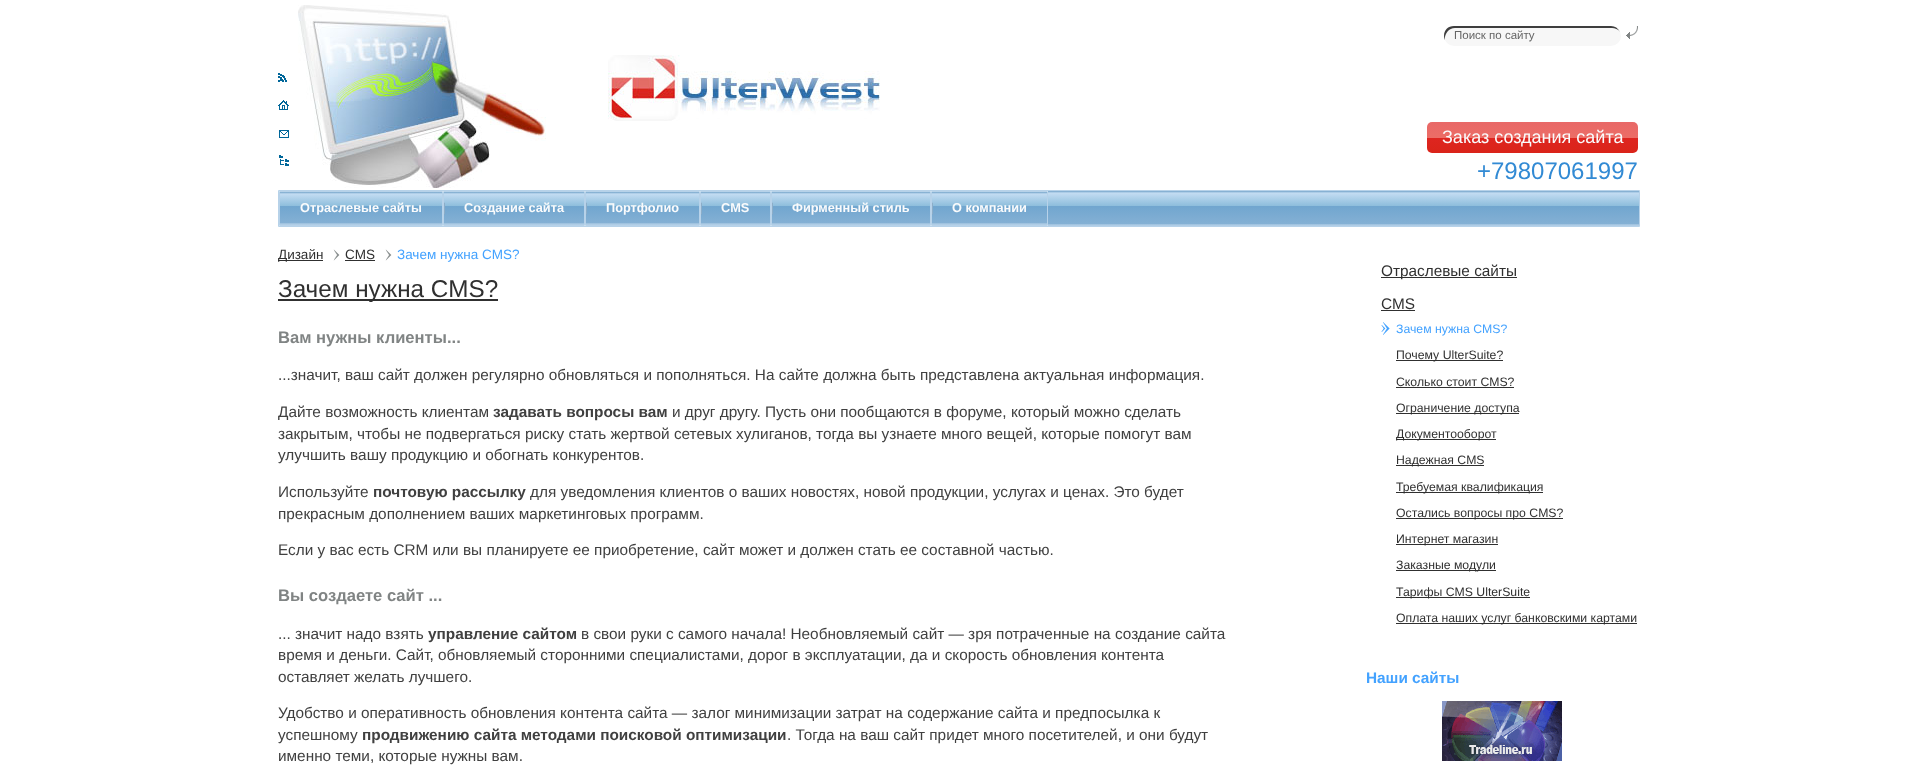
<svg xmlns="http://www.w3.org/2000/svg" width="1915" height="769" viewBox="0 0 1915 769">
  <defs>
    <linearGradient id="g1" gradientUnits="userSpaceOnUse" x1="1533" y1="122" x2="1533" y2="153"><stop offset="0" stop-color="#e86867"/><stop offset="0.5" stop-color="#ec6d66"/><stop offset="0.51" stop-color="#de2520"/><stop offset="1" stop-color="#da2419"/></linearGradient>
    <linearGradient id="g2" gradientUnits="userSpaceOnUse" x1="959" y1="191" x2="959" y2="226"><stop offset="0" stop-color="#75a4c9"/><stop offset="0.06" stop-color="#c3dcf2"/><stop offset="0.42" stop-color="#8ebedc"/><stop offset="0.44" stop-color="#71a6cf"/><stop offset="0.94" stop-color="#84b0d4"/><stop offset="0.95" stop-color="#9ec1de"/><stop offset="1" stop-color="#b7d2e9"/></linearGradient>
    <linearGradient id="g3" gradientUnits="userSpaceOnUse" x1="361" y1="192" x2="361" y2="225"><stop offset="0" stop-color="#75a4c9"/><stop offset="0.06" stop-color="#c3dcf2"/><stop offset="0.42" stop-color="#8ebedc"/><stop offset="0.44" stop-color="#71a6cf"/><stop offset="0.94" stop-color="#84b0d4"/><stop offset="0.95" stop-color="#9ec1de"/><stop offset="1" stop-color="#b7d2e9"/></linearGradient>
    <linearGradient id="g4" gradientUnits="userSpaceOnUse" x1="514" y1="192" x2="514" y2="225"><stop offset="0" stop-color="#75a4c9"/><stop offset="0.06" stop-color="#c3dcf2"/><stop offset="0.42" stop-color="#8ebedc"/><stop offset="0.44" stop-color="#71a6cf"/><stop offset="0.94" stop-color="#84b0d4"/><stop offset="0.95" stop-color="#9ec1de"/><stop offset="1" stop-color="#b7d2e9"/></linearGradient>
    <linearGradient id="g5" gradientUnits="userSpaceOnUse" x1="643" y1="192" x2="643" y2="225"><stop offset="0" stop-color="#75a4c9"/><stop offset="0.06" stop-color="#c3dcf2"/><stop offset="0.42" stop-color="#8ebedc"/><stop offset="0.44" stop-color="#71a6cf"/><stop offset="0.94" stop-color="#84b0d4"/><stop offset="0.95" stop-color="#9ec1de"/><stop offset="1" stop-color="#b7d2e9"/></linearGradient>
    <linearGradient id="g6" gradientUnits="userSpaceOnUse" x1="736" y1="192" x2="736" y2="225"><stop offset="0" stop-color="#75a4c9"/><stop offset="0.06" stop-color="#c3dcf2"/><stop offset="0.42" stop-color="#8ebedc"/><stop offset="0.44" stop-color="#71a6cf"/><stop offset="0.94" stop-color="#84b0d4"/><stop offset="0.95" stop-color="#9ec1de"/><stop offset="1" stop-color="#b7d2e9"/></linearGradient>
    <linearGradient id="g7" gradientUnits="userSpaceOnUse" x1="851" y1="192" x2="851" y2="225"><stop offset="0" stop-color="#75a4c9"/><stop offset="0.06" stop-color="#c3dcf2"/><stop offset="0.42" stop-color="#8ebedc"/><stop offset="0.44" stop-color="#71a6cf"/><stop offset="0.94" stop-color="#84b0d4"/><stop offset="0.95" stop-color="#9ec1de"/><stop offset="1" stop-color="#b7d2e9"/></linearGradient>
    <linearGradient id="g8" gradientUnits="userSpaceOnUse" x1="990" y1="192" x2="990" y2="225"><stop offset="0" stop-color="#75a4c9"/><stop offset="0.06" stop-color="#c3dcf2"/><stop offset="0.42" stop-color="#8ebedc"/><stop offset="0.44" stop-color="#71a6cf"/><stop offset="0.94" stop-color="#84b0d4"/><stop offset="0.95" stop-color="#9ec1de"/><stop offset="1" stop-color="#b7d2e9"/></linearGradient>
  </defs>
  <rect width="100%" height="100%" fill="#fff"/>
  <image x="298" y="5" width="248" height="183" href="img/1.png"/>
  <rect x="1444" y="26" width="177" height="20" rx="10" fill="#f7f7f7"/>
  <path d="M1455 28H1612C1615 28 1618 29 1620 32C1618 28 1615 26 1611 26H1454C1448 26 1444 30 1444 36C1444 38 1445 40 1445 41C1444 35 1448 28 1455 28Z" fill="#3e3e3e"/>
  <image x="1626" y="26" width="12" height="13" href="img/2.png"/>
  <image x="278" y="73" width="9" height="9" href="img/3.png"/>
  <image x="278" y="100" width="11" height="10" href="img/4.png"/>
  <image x="279" y="130" width="10" height="8" href="img/5.png"/>
  <image x="279" y="155" width="10" height="11" href="img/6.png"/>
  <image x="608" y="55" width="272" height="66" href="img/7.png"/>
  <rect x="1427" y="122" width="211" height="31" rx="5" fill="url(#g1)"/>
  <path d="M1048 191h591v35H1048z" fill="url(#g2)"/>
  <path d="M278.5 190.5h1361v36H278.5z" fill="none" stroke="#b7d2e9"/>
  <path d="M280 192h162v33H280z" fill="url(#g3)"/>
  <path d="M279.5 191.5h163v34H279.5z" fill="none" stroke="#b7d2e9"/>
  <path d="M444 192h140v33H444z" fill="url(#g4)"/>
  <path d="M443.5 191.5h141v34H443.5z" fill="none" stroke="#b7d2e9"/>
  <image x="444" y="202" width="1" height="13" href="img/8.png"/>
  <path d="M586 192h113v33H586z" fill="url(#g5)"/>
  <path d="M585.5 191.5h114v34H585.5z" fill="none" stroke="#b7d2e9"/>
  <image x="586" y="202" width="1" height="13" href="img/8.png"/>
  <path d="M701 192h69v33H701z" fill="url(#g6)"/>
  <path d="M700.5 191.5h70v34H700.5z" fill="none" stroke="#b7d2e9"/>
  <image x="701" y="202" width="1" height="13" href="img/8.png"/>
  <path d="M772 192h158v33H772z" fill="url(#g7)"/>
  <path d="M771.5 191.5h159v34H771.5z" fill="none" stroke="#b7d2e9"/>
  <image x="772" y="202" width="1" height="13" href="img/8.png"/>
  <path d="M932 192h115v33H932z" fill="url(#g8)"/>
  <path d="M931.5 191.5h116v34H931.5z" fill="none" stroke="#b7d2e9"/>
  <image x="932" y="202" width="1" height="13" href="img/8.png"/>
  <path d="M278 260h45v1H278z" fill="#303030"/>
  <image x="333" y="249" width="7" height="12" href="img/9.png"/>
  <path d="M345 260h30v1H345z" fill="#303030"/>
  <image x="385" y="249" width="7" height="12" href="img/9.png"/>
  <path d="M278 299h220v2H278z" fill="#303030"/>
  <path d="M1381 277h136v1H1381z" fill="#303030"/>
  <path d="M1381 310h34v1H1381z" fill="#303030"/>
  <image x="1381" y="322" width="9" height="13" href="img/10.png"/>
  <path d="M1396 360h107v1H1396z" fill="#303030"/>
  <path d="M1396 387h118v1H1396z" fill="#303030"/>
  <path d="M1396 413h123v1H1396z" fill="#303030"/>
  <path d="M1396 439h100v1H1396z" fill="#303030"/>
  <path d="M1396 465h88v1H1396z" fill="#303030"/>
  <path d="M1396 492h147v1H1396z" fill="#303030"/>
  <path d="M1396 518h167v1H1396z" fill="#303030"/>
  <path d="M1396 544h102v1H1396z" fill="#303030"/>
  <path d="M1396 570h100v1H1396z" fill="#303030"/>
  <path d="M1396 597h134v1H1396z" fill="#303030"/>
  <path d="M1396 623h241v1H1396z" fill="#303030"/>
  <image x="1442" y="701" width="120" height="60" href="img/11.png"/>
  <text x="1454" y="39" font-family="Liberation Sans" font-size="11.5" fill="#666">Поиск по сайту</text>
  <text x="1442" y="143" font-family="Liberation Sans" font-size="18" fill="#fafbfc">Заказ создания сайта</text>
  <text x="1477" y="179" font-family="Liberation Sans" font-size="24" fill="#328ad4">+79807061997</text>
  <g font-family="Liberation Sans" font-size="12.75" font-weight="bold" fill="#fafbfc">
    <text x="300" y="212">Отраслевые сайты</text>
    <text x="464" y="212">Создание сайта</text>
    <text x="606" y="212">Портфолио</text>
    <text x="721" y="212">CMS</text>
    <text x="792" y="212">Фирменный стиль</text>
    <text x="952" y="212">О компании</text>
  </g>
  <g font-family="Liberation Sans" font-size="13.5" fill="#303030">
    <text x="278" y="259">Дизайн</text>
    <text x="345" y="259">CMS</text>
  </g>
  <text x="397" y="259" font-family="Liberation Sans" font-size="13.5" fill="#43a2ff">Зачем нужна CMS?</text>
  <text x="278" y="297" font-family="Liberation Sans" font-size="24.25" fill="#303030">Зачем нужна CMS?</text>
  <text x="278" y="343" font-family="Liberation Sans" font-size="16.6" font-weight="bold" fill="#808484">Вам нужны клиенты...</text>
  <g font-family="Liberation Sans" font-size="15.35" fill="#404040">
    <text x="278" y="380">...значит, ваш сайт должен регулярно обновляться и пополняться. На сайте должна быть представлена актуальная информация.</text>
    <text x="278" y="417">Дайте возможность клиентам</text>
  </g>
  <text x="493" y="417" font-family="Liberation Sans" font-size="15.35" font-weight="bold" fill="#404040">задавать вопросы вам</text>
  <g font-family="Liberation Sans" font-size="15.35" fill="#404040">
    <text x="672" y="417">и друг другу. Пусть они пообщаются в форуме, который можно сделать</text>
    <text x="278" y="439">закрытым, чтобы не подвергаться риску стать жертвой сетевых хулиганов, тогда вы узнаете много вещей, которые помогут вам</text>
    <text x="278" y="460">улучшить вашу продукцию и обогнать конкурентов.</text>
    <text x="278" y="497">Используйте</text>
  </g>
  <text x="373" y="497" font-family="Liberation Sans" font-size="15.35" font-weight="bold" fill="#404040">почтовую рассылку</text>
  <g font-family="Liberation Sans" font-size="15.35" fill="#404040">
    <text x="530" y="497">для уведомления клиентов о ваших новостях, новой продукции, услугах и ценах. Это будет</text>
    <text x="278" y="519">прекрасным дополнением ваших маркетинговых программ.</text>
    <text x="278" y="555">Если у вас есть CRM или вы планируете ее приобретение, сайт может и должен стать ее составной частью.</text>
  </g>
  <text x="278" y="601" font-family="Liberation Sans" font-size="16.6" font-weight="bold" fill="#808484">Вы создаете сайт ...</text>
  <text x="278" y="639" font-family="Liberation Sans" font-size="15.35" fill="#404040">... значит надо взять</text>
  <text x="428" y="639" font-family="Liberation Sans" font-size="15.35" font-weight="bold" fill="#404040">управление сайтом</text>
  <g font-family="Liberation Sans" font-size="15.35" fill="#404040">
    <text x="581" y="639">в свои руки с самого начала! Необновляемый сайт — зря потраченные на создание сайта</text>
    <text x="278" y="660">время и деньги. Сайт, обновляемый сторонними специалистами, дорог в эксплуатации, да и скорость обновления контента</text>
    <text x="278" y="682">оставляет желать лучшего.</text>
    <text x="278" y="718">Удобство и оперативность обновления контента сайта — залог минимизации затрат на содержание сайта и предпосылка к</text>
    <text x="278" y="740">успешному</text>
  </g>
  <text x="362" y="740" font-family="Liberation Sans" font-size="15.35" font-weight="bold" fill="#404040">продвижению сайта методами поисковой оптимизации</text>
  <g font-family="Liberation Sans" font-size="15.35" fill="#404040">
    <text x="787" y="740">. Тогда на ваш сайт придет много посетителей, и они будут</text>
    <text x="278" y="761">именно теми, которые нужны вам.</text>
  </g>
  <g font-family="Liberation Sans" font-size="15.35" fill="#303030">
    <text x="1381" y="276">Отраслевые сайты</text>
    <text x="1381" y="309">CMS</text>
  </g>
  <text x="1396" y="333" font-family="Liberation Sans" font-size="12.25" fill="#43a2ff">Зачем нужна CMS?</text>
  <g font-family="Liberation Sans" font-size="12.25" fill="#303030">
    <text x="1396" y="359">Почему UlterSuite?</text>
    <text x="1396" y="386">Сколько стоит CMS?</text>
    <text x="1396" y="412">Ограничение доступа</text>
    <text x="1396" y="438">Документооборот</text>
    <text x="1396" y="464">Надежная CMS</text>
    <text x="1396" y="491">Требуемая квалификация</text>
    <text x="1396" y="517">Остались вопросы про CMS?</text>
    <text x="1396" y="543">Интернет магазин</text>
    <text x="1396" y="569">Заказные модули</text>
    <text x="1396" y="596">Тарифы CMS UlterSuite</text>
    <text x="1396" y="622">Оплата наших услуг банковскими картами</text>
  </g>
  <text x="1366" y="683" font-family="Liberation Sans" font-size="15.35" font-weight="bold" fill="#43a2ff">Наши сайты</text>
</svg>
